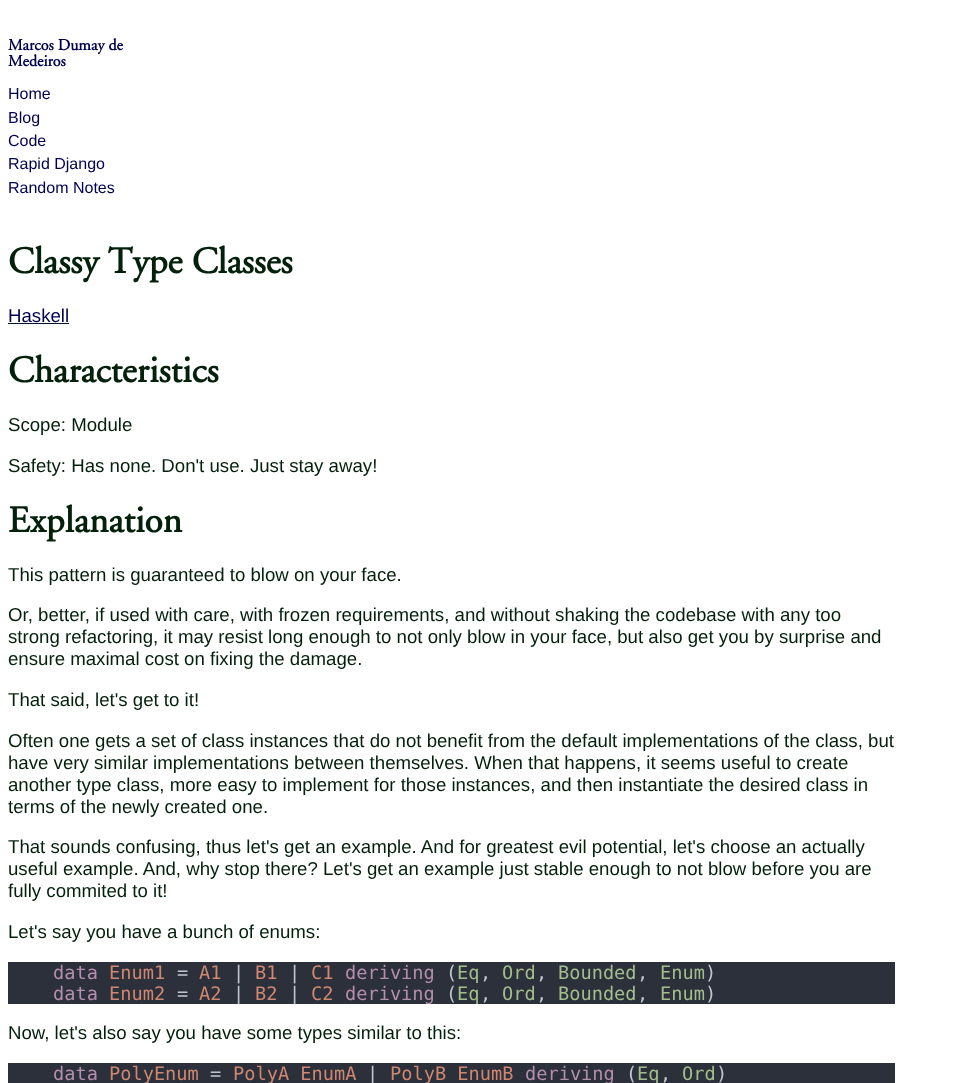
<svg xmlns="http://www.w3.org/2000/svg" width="979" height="1083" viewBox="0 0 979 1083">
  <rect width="100%" height="100%" fill="#fff"/>
  <path d="M8 323h61v1H8z" fill="#000050"/>
  <path d="M8 323.5H69" fill="none" stroke="#03200b" stroke-dasharray="1 1"/>
  <path d="M8 962h887v42H8z" fill="#2b303b"/>
  <path d="M8 1063h887v20H8z" fill="#2b303b"/>
  <g font-family="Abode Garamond" font-size="16" font-weight="bold" fill="#000050">
    <text x="8" y="50">Marcos Dumay de</text>
    <text x="8" y="66">Medeiros</text>
  </g>
  <g font-family="Liberation Sans" font-size="16" fill="#000050">
    <text x="8" y="99">Home</text>
    <text x="8" y="123">Blog</text>
    <text x="8" y="146">Code</text>
    <text x="8" y="169">Rapid Django</text>
    <text x="8" y="193">Random Notes</text>
  </g>
  <text x="8" y="273" font-family="Abode Garamond" font-size="37.25" font-weight="bold" fill="#03200b">Classy Type Classes</text>
  <text x="8" y="322" font-family="Liberation Sans" font-size="18.65" fill="#000050">Haskell</text>
  <text x="8" y="382" font-family="Abode Garamond" font-size="37.25" font-weight="bold" fill="#03200b">Characteristics</text>
  <g font-family="Liberation Sans" font-size="18.65" fill="#03200b">
    <text x="8" y="431">Scope: Module</text>
    <text x="8" y="472">Safety: Has none. Don't use. Just stay away!</text>
  </g>
  <text x="8" y="532" font-family="Abode Garamond" font-size="37.25" font-weight="bold" fill="#03200b">Explanation</text>
  <g font-family="Liberation Sans" font-size="18.65" fill="#03200b">
    <text x="8" y="581">This pattern is guaranteed to blow on your face.</text>
    <text x="8" y="621">Or, better, if used with care, with frozen requirements, and without shaking the codebase with any too</text>
    <text x="8" y="643">strong refactoring, it may resist long enough to not only blow in your face, but also get you by surprise and</text>
    <text x="8" y="665">ensure maximal cost on fixing the damage.</text>
    <text x="8" y="706">That said, let's get to it!</text>
    <text x="8" y="747">Often one gets a set of class instances that do not benefit from the default implementations of the class, but</text>
    <text x="8" y="769">have very similar implementations between themselves. When that happens, it seems useful to create</text>
    <text x="8" y="791">another type class, more easy to implement for those instances, and then instantiate the desired class in</text>
    <text x="8" y="813">terms of the newly created one.</text>
    <text x="8" y="853">That sounds confusing, thus let's get an example. And for greatest evil potential, let's choose an actually</text>
    <text x="8" y="875">useful example. And, why stop there? Let's get an example just stable enough to not blow before you are</text>
    <text x="8" y="897">fully commited to it!</text>
    <text x="8" y="938">Let's say you have a bunch of enums:</text>
  </g>
  <text x="53" y="979" font-family="DejaVu Sans Mono" font-size="18.65" fill="#b48ead">data</text>
  <text x="109" y="979" font-family="DejaVu Sans Mono" font-size="18.65" fill="#d08770">Enum1</text>
  <text x="177" y="979" font-family="DejaVu Sans Mono" font-size="18.65" fill="#c0c5ce">=</text>
  <text x="199" y="979" font-family="DejaVu Sans Mono" font-size="18.65" fill="#d08770">A1</text>
  <text x="233" y="979" font-family="DejaVu Sans Mono" font-size="18.65" fill="#c0c5ce">|</text>
  <text x="255" y="979" font-family="DejaVu Sans Mono" font-size="18.65" fill="#d08770">B1</text>
  <text x="289" y="979" font-family="DejaVu Sans Mono" font-size="18.65" fill="#c0c5ce">|</text>
  <text x="311" y="979" font-family="DejaVu Sans Mono" font-size="18.65" fill="#d08770">C1</text>
  <text x="345" y="979" font-family="DejaVu Sans Mono" font-size="18.65" fill="#b48ead">deriving</text>
  <text x="446" y="979" font-family="DejaVu Sans Mono" font-size="18.65" fill="#c0c5ce">(</text>
  <g font-family="DejaVu Sans Mono" font-size="18.65" fill="#a3be8c">
    <text x="457" y="979">Eq</text>
    <text x="502" y="979">Ord</text>
    <text x="558" y="979">Bounded</text>
    <text x="660" y="979">Enum</text>
  </g>
  <g font-family="DejaVu Sans Mono" font-size="18.65" fill="#c0c5ce">
    <text x="705" y="979">)</text>
    <text x="480" y="979">,</text>
    <text x="536" y="979">,</text>
    <text x="637" y="979">,</text>
  </g>
  <text x="53" y="1000" font-family="DejaVu Sans Mono" font-size="18.65" fill="#b48ead">data</text>
  <text x="109" y="1000" font-family="DejaVu Sans Mono" font-size="18.65" fill="#d08770">Enum2</text>
  <text x="177" y="1000" font-family="DejaVu Sans Mono" font-size="18.65" fill="#c0c5ce">=</text>
  <text x="199" y="1000" font-family="DejaVu Sans Mono" font-size="18.65" fill="#d08770">A2</text>
  <text x="233" y="1000" font-family="DejaVu Sans Mono" font-size="18.65" fill="#c0c5ce">|</text>
  <text x="255" y="1000" font-family="DejaVu Sans Mono" font-size="18.65" fill="#d08770">B2</text>
  <text x="289" y="1000" font-family="DejaVu Sans Mono" font-size="18.65" fill="#c0c5ce">|</text>
  <text x="311" y="1000" font-family="DejaVu Sans Mono" font-size="18.65" fill="#d08770">C2</text>
  <text x="345" y="1000" font-family="DejaVu Sans Mono" font-size="18.65" fill="#b48ead">deriving</text>
  <text x="446" y="1000" font-family="DejaVu Sans Mono" font-size="18.65" fill="#c0c5ce">(</text>
  <g font-family="DejaVu Sans Mono" font-size="18.65" fill="#a3be8c">
    <text x="457" y="1000">Eq</text>
    <text x="502" y="1000">Ord</text>
    <text x="558" y="1000">Bounded</text>
    <text x="660" y="1000">Enum</text>
  </g>
  <g font-family="DejaVu Sans Mono" font-size="18.65" fill="#c0c5ce">
    <text x="705" y="1000">)</text>
    <text x="480" y="1000">,</text>
    <text x="536" y="1000">,</text>
    <text x="637" y="1000">,</text>
  </g>
  <text x="8" y="1039" font-family="Liberation Sans" font-size="18.65" fill="#03200b">Now, let's also say you have some types similar to this:</text>
  <text x="53" y="1080" font-family="DejaVu Sans Mono" font-size="18.65" fill="#b48ead">data</text>
  <text x="109" y="1080" font-family="DejaVu Sans Mono" font-size="18.65" fill="#d08770">PolyEnum</text>
  <text x="210" y="1080" font-family="DejaVu Sans Mono" font-size="18.65" fill="#c0c5ce">=</text>
  <text x="233" y="1080" font-family="DejaVu Sans Mono" font-size="18.65" fill="#d08770">PolyA EnumA</text>
  <text x="367" y="1080" font-family="DejaVu Sans Mono" font-size="18.65" fill="#c0c5ce">|</text>
  <text x="390" y="1080" font-family="DejaVu Sans Mono" font-size="18.65" fill="#d08770">PolyB EnumB</text>
  <text x="525" y="1080" font-family="DejaVu Sans Mono" font-size="18.65" fill="#b48ead">deriving</text>
  <text x="626" y="1080" font-family="DejaVu Sans Mono" font-size="18.65" fill="#c0c5ce">(</text>
  <g font-family="DejaVu Sans Mono" font-size="18.65" fill="#a3be8c">
    <text x="637" y="1080">Eq</text>
    <text x="682" y="1080">Ord</text>
  </g>
  <g font-family="DejaVu Sans Mono" font-size="18.65" fill="#c0c5ce">
    <text x="716" y="1080">)</text>
    <text x="660" y="1080">,</text>
  </g>
</svg>
